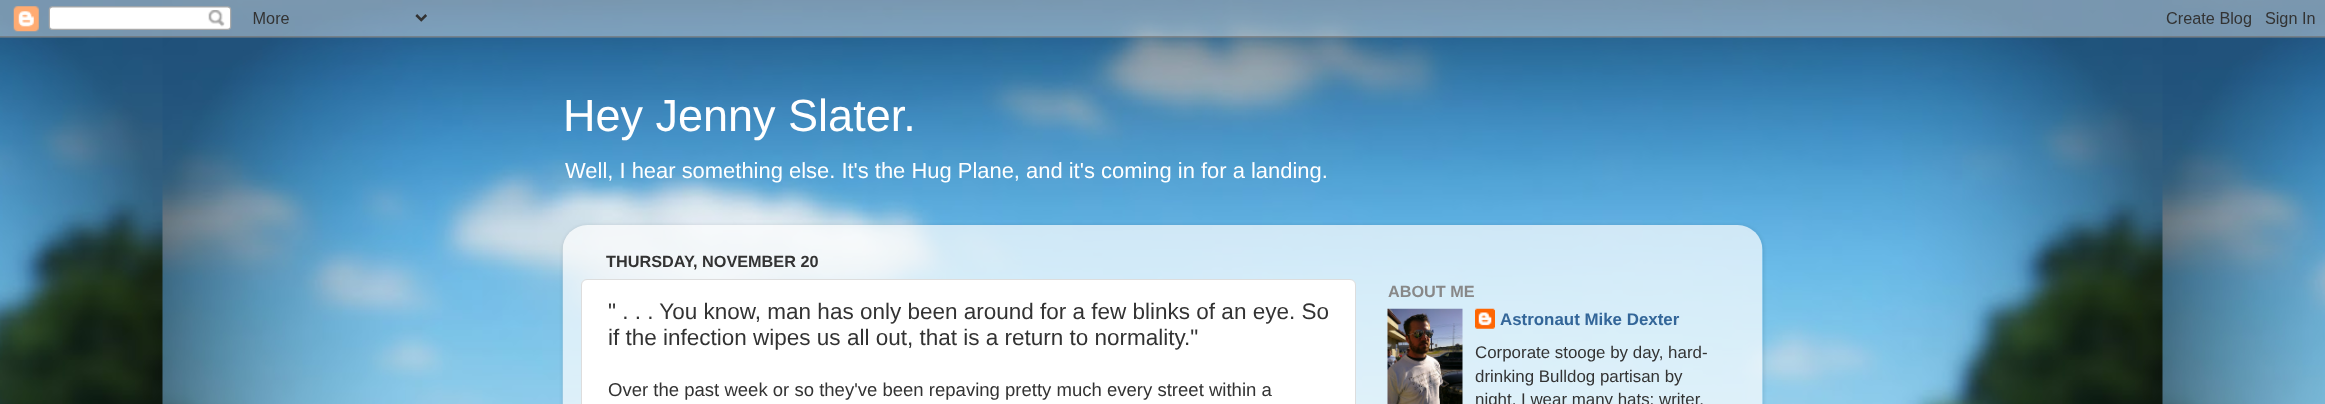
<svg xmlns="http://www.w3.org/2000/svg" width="2325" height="404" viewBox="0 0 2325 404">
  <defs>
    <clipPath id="clip1"><path d="M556 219H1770V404H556ZM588 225H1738C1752 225 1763 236 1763 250V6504H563V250C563 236 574 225 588 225Z" clip-rule="evenodd"/></clipPath>
  </defs>
  <rect width="100%" height="100%" fill="#fff"/>
  <image x="0" y="0" width="2325" height="404" href="img/1.png"/>
  <image x="0" y="0" width="2325" height="38" href="img/2.png"/>
  <g clip-path="url(#clip1)">
    <rect x="563" y="226" width="1200" height="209" rx="25" fill="#00000026" filter="blur(2px)"/>
  </g>
  <image x="562" y="225" width="1201" height="179" href="img/3.png"/>
  <rect x="581.5" y="279.5" width="774" height="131" rx="5.5" fill="#fff" stroke="#ddd"/>
  <image x="1387" y="308" width="76" height="96" href="img/4.png"/>
  <image x="1475" y="308" width="20" height="21" href="img/5.png"/>
  <text x="563" y="131" font-family="Liberation Sans" font-size="45" fill="#fff">Hey Jenny Slater.</text>
  <text x="565" y="178" font-family="Liberation Sans" font-size="21.95" fill="#fff">Well, I hear something else. It's the Hug Plane, and it's coming in for a landing.</text>
  <text x="606" y="267" font-family="Liberation Sans" font-size="16.25" font-weight="bold" fill="#333">THURSDAY, NOVEMBER 20</text>
  <g font-family="Liberation Sans" font-size="22.5" fill="#333">
    <text x="608" y="319">" . . . You know, man has only been around for a few blinks of an eye. So</text>
    <text x="608" y="345">if the infection wipes us all out, that is a return to normality."</text>
  </g>
  <text x="608" y="396" font-family="Liberation Sans" font-size="18.55" fill="#333">Over the past week or so they've been repaving pretty much every street within a</text>
  <text x="1388" y="297" font-family="Liberation Sans" font-size="16.25" font-weight="bold" fill="#888">ABOUT ME</text>
  <text x="1500" y="325" font-family="Liberation Sans" font-size="16.9" font-weight="bold" fill="#369">Astronaut Mike Dexter</text>
  <g font-family="Liberation Sans" font-size="16.9" fill="#333">
    <text x="1475" y="358">Corporate stooge by day, hard-</text>
    <text x="1475" y="382">drinking Bulldog partisan by</text>
    <text x="1475" y="405">night, I wear many hats: writer,</text>
  </g>
</svg>
